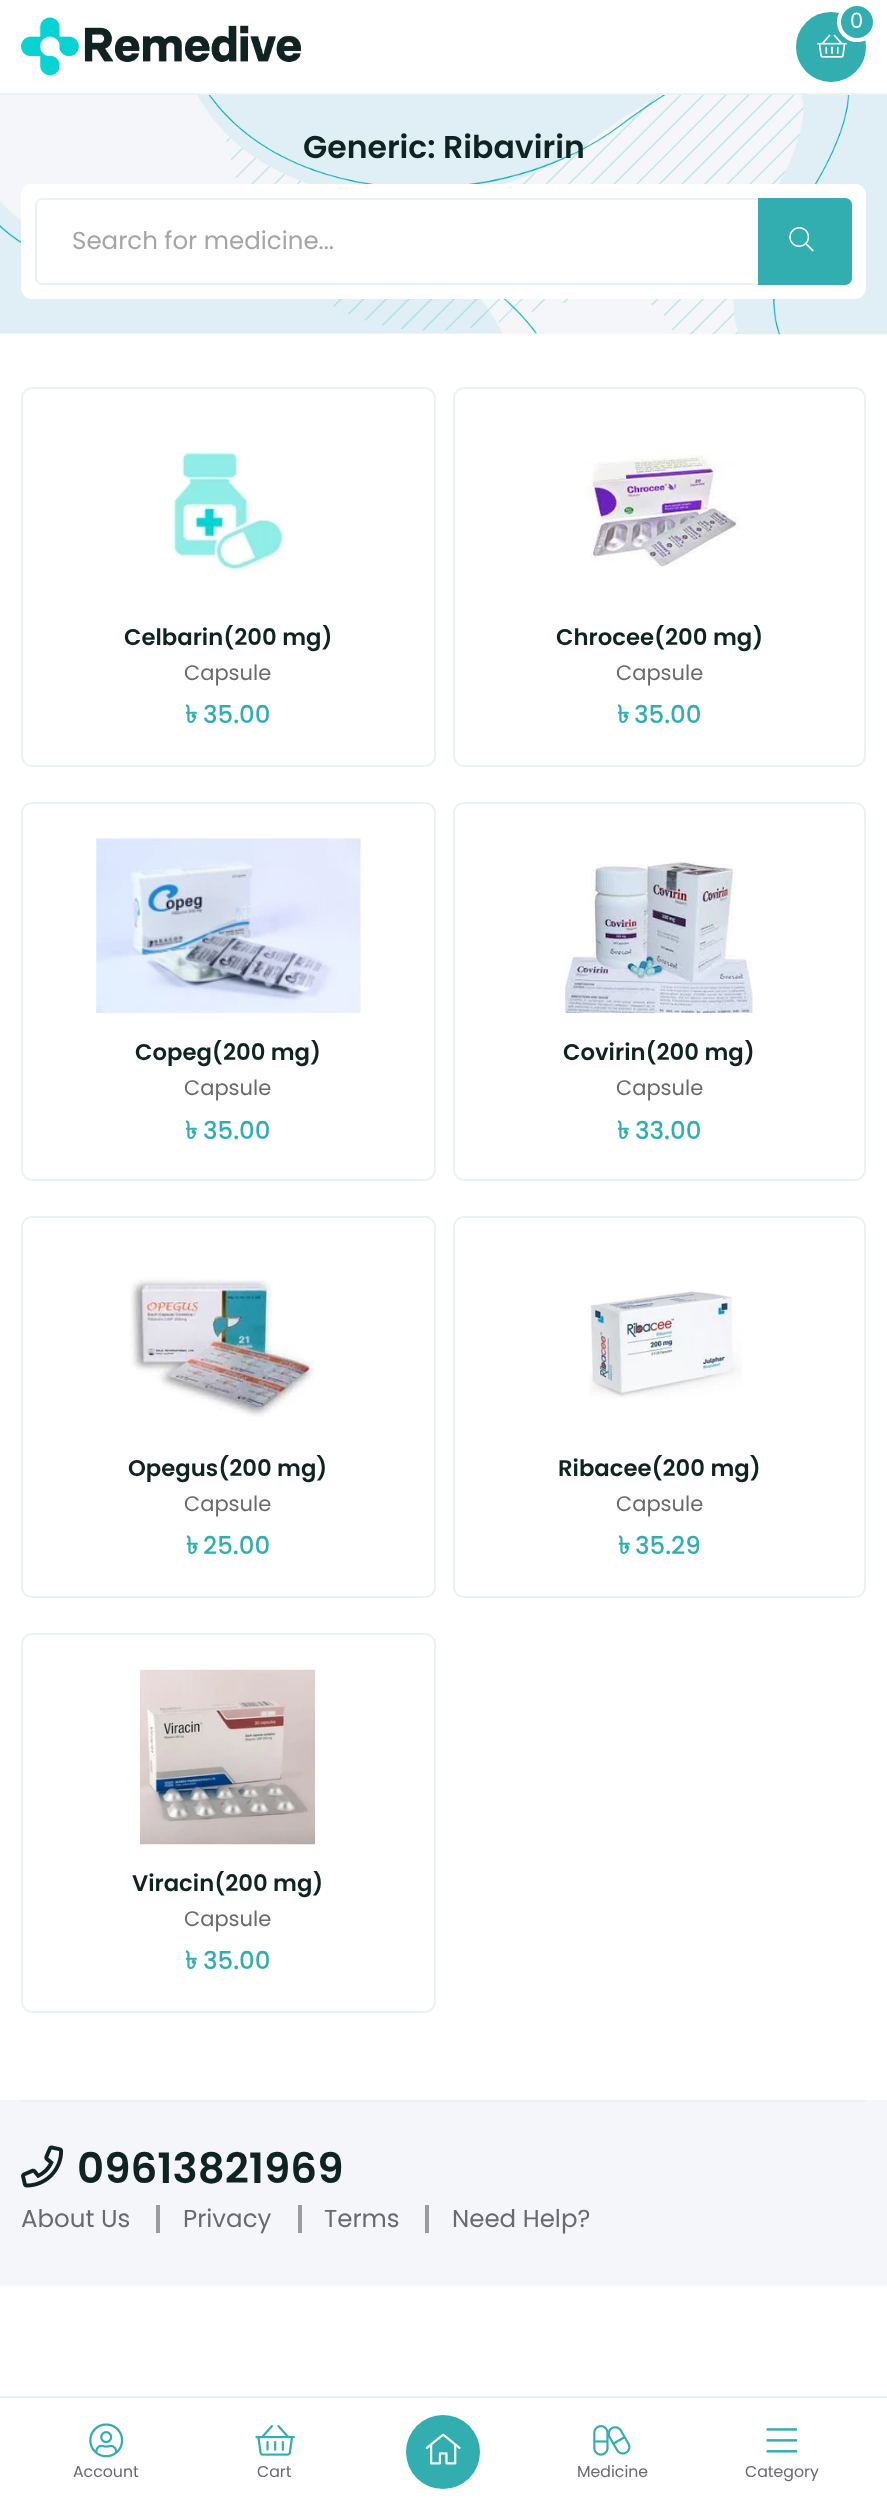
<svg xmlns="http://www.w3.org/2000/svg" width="887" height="2506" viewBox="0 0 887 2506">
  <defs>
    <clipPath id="clip1"><path d="M49 625h359v30H49z"/></clipPath>
    <clipPath id="clip2"><path d="M481 625h357v30H481z"/></clipPath>
    <clipPath id="clip3"><path d="M49 1040h359v29H49z"/></clipPath>
    <clipPath id="clip4"><path d="M481 1040h357v29H481z"/></clipPath>
    <clipPath id="clip5"><path d="M49 1871h359v30H49z"/></clipPath>
  </defs>
  <rect width="100%" height="100%" fill="#fff"/>
  <path d="M0 93h887v2H0z" fill="#ebf2f3"/>
  <image x="21" y="17" width="280" height="59" href="img/1.png"/>
  <circle cx="831" cy="47" r="34" fill="#32aeb1" stroke="#32aeb1" stroke-width="2"/>
  <image x="817" y="34" width="30" height="24" href="img/2.png"/>
  <circle cx="857" cy="22" r="18" fill="#32aeb1" stroke="#fff" stroke-width="4"/>
  <path d="M0 95h804v239H0z" fill="#f5f6f9"/>
  <image x="0" y="201" width="537" height="133" href="img/4.png"/>
  <image x="197" y="95" width="690" height="240" href="img/3.png"/>
  <rect x="21" y="184" width="845" height="115" rx="11" fill="#fff"/>
  <path d="M42 199H759V284H42C38.5 284 36 281.5 36 278V205C36 201.5 38.5 199 42 199Z" fill="none" stroke="#ebf2f3" stroke-width="2"/>
  <path d="M758 198H845C849 198 852 201 852 205V278C852 282 849 285 845 285H758Z" fill="#32aeb1"/>
  <image x="789" y="227" width="25" height="25" href="img/5.png"/>
  <rect x="22" y="388" width="413" height="378" rx="10" fill="none" stroke="#ebf2f3" stroke-width="2"/>
  <image x="171" y="451" width="113" height="120" href="img/6.png"/>
  <rect x="454" y="388" width="411" height="378" rx="10" fill="none" stroke="#ebf2f3" stroke-width="2"/>
  <image x="586" y="454" width="154" height="113" href="img/7.png"/>
  <rect x="22" y="803" width="413" height="377" rx="10" fill="none" stroke="#ebf2f3" stroke-width="2"/>
  <image x="96" y="838" width="265" height="175" href="img/8.png"/>
  <rect x="454" y="803" width="411" height="377" rx="10" fill="none" stroke="#ebf2f3" stroke-width="2"/>
  <image x="565" y="860" width="188" height="154" href="img/9.png"/>
  <rect x="22" y="1217" width="413" height="380" rx="10" fill="none" stroke="#ebf2f3" stroke-width="2"/>
  <image x="130" y="1277" width="184" height="140" href="img/10.png"/>
  <rect x="454" y="1217" width="411" height="380" rx="10" fill="none" stroke="#ebf2f3" stroke-width="2"/>
  <image x="589" y="1291" width="153" height="108" href="img/11.png"/>
  <rect x="22" y="1634" width="413" height="378" rx="10" fill="none" stroke="#ebf2f3" stroke-width="2"/>
  <image x="140" y="1669" width="175" height="176" href="img/12.png"/>
  <path d="M0 2100h887v186H0z" fill="#f5f6f9"/>
  <path d="M21 2100h845v2H21z" fill="#ebf2f3"/>
  <image x="21" y="2145" width="43" height="43" href="img/13.png"/>
  <path d="M156 2205h4v28H156z" fill="#999b9f"/>
  <path d="M298 2205h4v28H298z" fill="#999b9f"/>
  <path d="M425 2205h4v28H425z" fill="#999b9f"/>
  <path d="M0 2396h887v2H0z" fill="#ebf2f3"/>
  <image x="89" y="2423" width="35" height="35" href="img/14.png"/>
  <image x="255" y="2425" width="40" height="31" href="img/15.png"/>
  <circle cx="443" cy="2452" r="37" fill="#32aeb1"/>
  <image x="425" y="2433" width="36" height="32" href="img/16.png"/>
  <image x="593" y="2425" width="38" height="31" href="img/17.png"/>
  <image x="766" y="2428" width="32" height="25" href="img/18.png"/>
  <text x="850" y="28" font-family="Poppins" font-size="21" fill="#fff">0</text>
  <text x="303" y="158" font-family="Poppins" font-size="31.5" font-weight="600" fill="#0f2422">Generic: Ribavirin</text>
  <text x="72" y="249" font-family="Poppins" font-size="24.5" fill="#a5a5a5">Search for medicine...</text>
  <g clip-path="url(#clip1)">
    <text x="124" y="645" font-family="Poppins" font-size="22.75" font-weight="600" fill="#0f2422">Celbarin(200 mg)</text>
  </g>
  <text x="184" y="680" font-family="Poppins" font-size="21" fill="#686a6f">Capsule</text>
  <text x="185" y="723" font-family="Lohit Bengali" font-size="24.5" font-weight="bold" fill="#32aeb1">৳</text>
  <text x="203" y="723" font-family="Poppins" font-size="24.5" font-weight="500" fill="#32aeb1">35.00</text>
  <g clip-path="url(#clip2)">
    <text x="556" y="645" font-family="Poppins" font-size="22.75" font-weight="600" fill="#0f2422">Chrocee(200 mg)</text>
  </g>
  <text x="616" y="680" font-family="Poppins" font-size="21" fill="#686a6f">Capsule</text>
  <text x="617" y="723" font-family="Lohit Bengali" font-size="24.5" font-weight="bold" fill="#32aeb1">৳</text>
  <text x="634" y="723" font-family="Poppins" font-size="24.5" font-weight="500" fill="#32aeb1">35.00</text>
  <g clip-path="url(#clip3)">
    <text x="135" y="1060" font-family="Poppins" font-size="22.75" font-weight="600" fill="#0f2422">Copeg(200 mg)</text>
  </g>
  <text x="184" y="1095" font-family="Poppins" font-size="21" fill="#686a6f">Capsule</text>
  <text x="185" y="1139" font-family="Lohit Bengali" font-size="24.5" font-weight="bold" fill="#32aeb1">৳</text>
  <text x="203" y="1139" font-family="Poppins" font-size="24.5" font-weight="500" fill="#32aeb1">35.00</text>
  <g clip-path="url(#clip4)">
    <text x="563" y="1060" font-family="Poppins" font-size="22.75" font-weight="600" fill="#0f2422">Covirin(200 mg)</text>
  </g>
  <text x="616" y="1095" font-family="Poppins" font-size="21" fill="#686a6f">Capsule</text>
  <text x="617" y="1139" font-family="Lohit Bengali" font-size="24.5" font-weight="bold" fill="#32aeb1">৳</text>
  <text x="635" y="1139" font-family="Poppins" font-size="24.5" font-weight="500" fill="#32aeb1">33.00</text>
  <text x="128" y="1476" font-family="Poppins" font-size="22.75" font-weight="600" fill="#0f2422">Opegus(200 mg)</text>
  <text x="184" y="1511" font-family="Poppins" font-size="21" fill="#686a6f">Capsule</text>
  <text x="186" y="1554" font-family="Lohit Bengali" font-size="24.5" font-weight="bold" fill="#32aeb1">৳</text>
  <text x="203" y="1554" font-family="Poppins" font-size="24.5" font-weight="500" fill="#32aeb1">25.00</text>
  <text x="558" y="1476" font-family="Poppins" font-size="22.75" font-weight="600" fill="#0f2422">Ribacee(200 mg)</text>
  <text x="616" y="1511" font-family="Poppins" font-size="21" fill="#686a6f">Capsule</text>
  <text x="618" y="1554" font-family="Lohit Bengali" font-size="24.5" font-weight="bold" fill="#32aeb1">৳</text>
  <text x="635" y="1554" font-family="Poppins" font-size="24.5" font-weight="500" fill="#32aeb1">35.29</text>
  <g clip-path="url(#clip5)">
    <text x="132" y="1891" font-family="Poppins" font-size="22.75" font-weight="600" fill="#0f2422">Viracin(200 mg)</text>
  </g>
  <text x="184" y="1926" font-family="Poppins" font-size="21" fill="#686a6f">Capsule</text>
  <text x="185" y="1969" font-family="Lohit Bengali" font-size="24.5" font-weight="bold" fill="#32aeb1">৳</text>
  <text x="203" y="1969" font-family="Poppins" font-size="24.5" font-weight="500" fill="#32aeb1">35.00</text>
  <text x="77" y="2183" font-family="Poppins" font-size="42" font-weight="600" fill="#0f2422">09613821969</text>
  <g font-family="Poppins" font-size="24.5" fill="#686a6f">
    <text x="21" y="2227">About Us</text>
    <text x="183" y="2227">Privacy</text>
    <text x="324" y="2227">Terms</text>
    <text x="452" y="2227">Need Help?</text>
  </g>
  <g font-family="Poppins" font-size="15.75" fill="#686a6f">
    <text x="73" y="2477">Account</text>
    <text x="257" y="2477">Cart</text>
    <text x="577" y="2477">Medicine</text>
    <text x="745" y="2477">Category</text>
  </g>
</svg>
